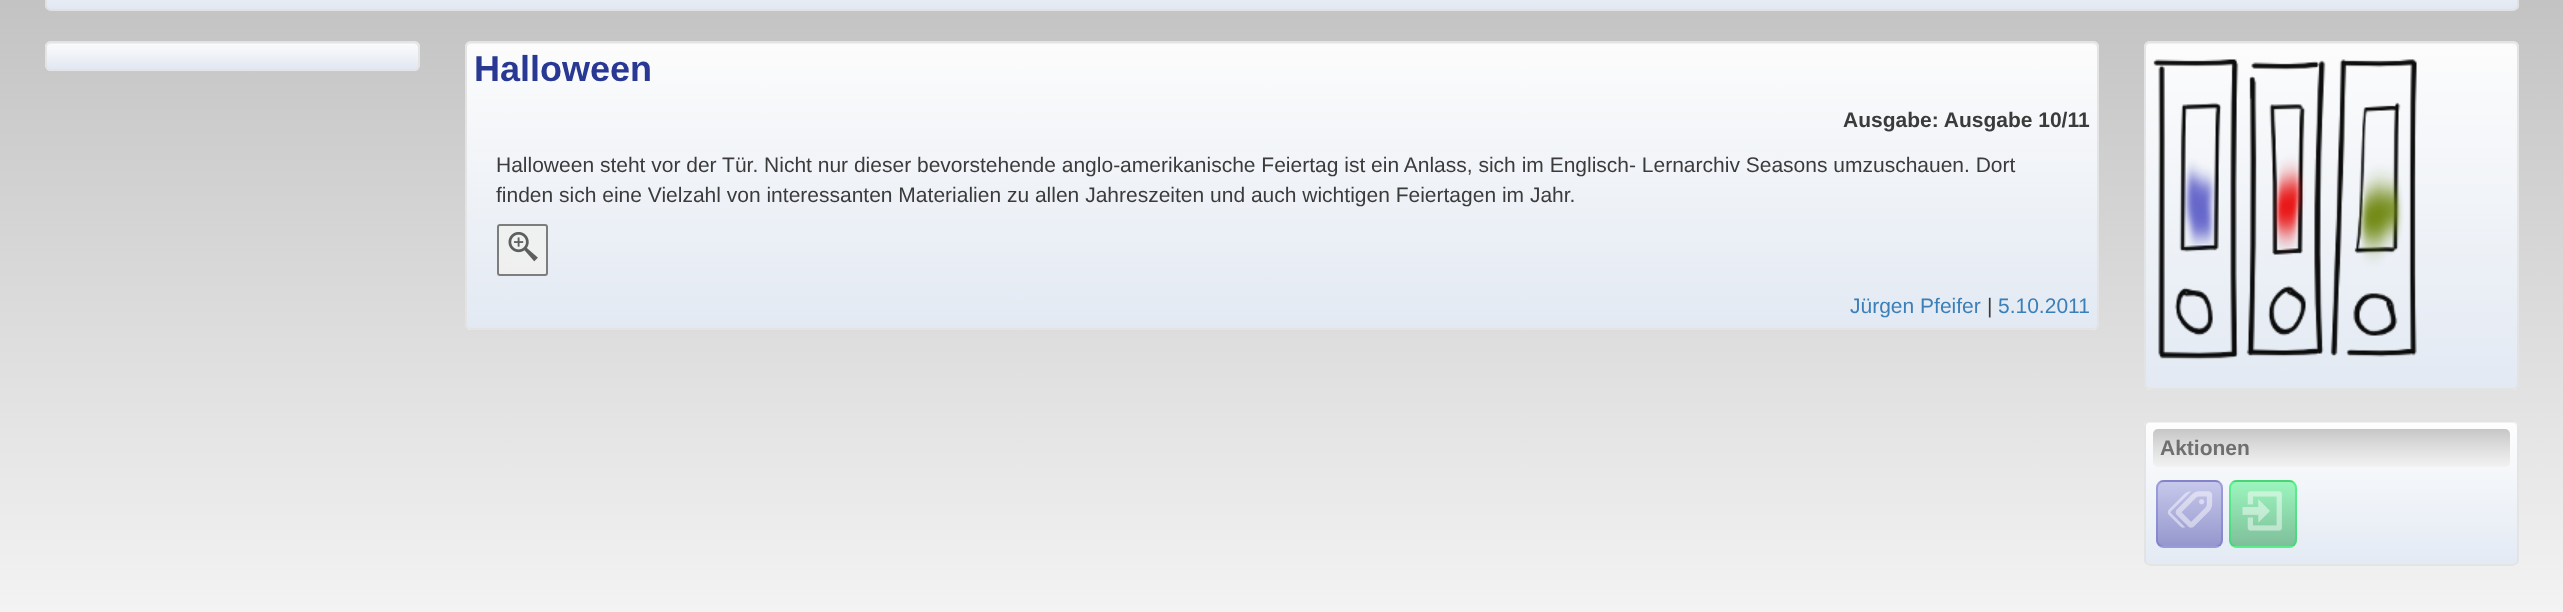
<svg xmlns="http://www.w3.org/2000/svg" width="2563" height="612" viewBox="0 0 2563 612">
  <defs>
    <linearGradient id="g1" gradientUnits="userSpaceOnUse" x1="1282" y1="612" x2="1282" y2="0"><stop offset="0" stop-color="#f3f3f3"/><stop offset="1" stop-color="#c3c3c3"/></linearGradient>
    <clipPath id="clip1"><rect x="45" y="-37" width="2474" height="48" rx="6"/></clipPath>
    <linearGradient id="g2" gradientUnits="userSpaceOnUse" x1="47" y1="9" x2="47" y2="-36"><stop offset="0" stop-color="#e1e8f2"/><stop offset="1" stop-color="#fcfcfc"/></linearGradient>
    <clipPath id="clip2"><rect x="45" y="41" width="375" height="30" rx="6"/></clipPath>
    <linearGradient id="g3" gradientUnits="userSpaceOnUse" x1="47" y1="42" x2="47" y2="15"><stop offset="0" stop-color="#e2e8f2"/><stop offset="1" stop-color="#fcfcfc"/></linearGradient>
    <linearGradient id="g4" gradientUnits="userSpaceOnUse" x1="47" y1="69" x2="47" y2="42"><stop offset="0" stop-color="#e2e8f2"/><stop offset="1" stop-color="#fcfcfc"/></linearGradient>
    <linearGradient id="g5" gradientUnits="userSpaceOnUse" x1="47" y1="96" x2="47" y2="69"><stop offset="0" stop-color="#e2e8f2"/><stop offset="1" stop-color="#fcfcfc"/></linearGradient>
    <clipPath id="clip3"><rect x="465" y="41" width="1634" height="289" rx="6"/></clipPath>
    <linearGradient id="g6" gradientUnits="userSpaceOnUse" x1="467" y1="42" x2="467" y2="-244"><stop offset="0" stop-color="#e2e8f2"/><stop offset="1" stop-color="#fcfcfc"/></linearGradient>
    <linearGradient id="g7" gradientUnits="userSpaceOnUse" x1="467" y1="329" x2="467" y2="42"><stop offset="0" stop-color="#e3eaf4" stop-opacity="0.95"/><stop offset="1" stop-color="#fff" stop-opacity="0.95"/></linearGradient>
    <linearGradient id="g8" gradientUnits="userSpaceOnUse" x1="467" y1="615" x2="467" y2="329"><stop offset="0" stop-color="#e3e9f3"/><stop offset="1" stop-color="#fdfdfd"/></linearGradient>
    <clipPath id="clip4"><rect x="2144" y="41" width="375" height="349" rx="6"/></clipPath>
    <linearGradient id="g9" gradientUnits="userSpaceOnUse" x1="2145" y1="42" x2="2145" y2="-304"><stop offset="0" stop-color="#e2e8f2"/><stop offset="1" stop-color="#fcfcfc"/></linearGradient>
    <linearGradient id="g10" gradientUnits="userSpaceOnUse" x1="2145" y1="389" x2="2145" y2="42"><stop offset="0" stop-color="#e3eaf4" stop-opacity="0.95"/><stop offset="1" stop-color="#fff" stop-opacity="0.95"/></linearGradient>
    <linearGradient id="g11" gradientUnits="userSpaceOnUse" x1="2145" y1="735" x2="2145" y2="389"><stop offset="0" stop-color="#e3eaf3"/><stop offset="1" stop-color="#fefefe"/></linearGradient>
    <clipPath id="clip5"><rect x="2144" y="420" width="375" height="146" rx="6"/></clipPath>
    <linearGradient id="g12" gradientUnits="userSpaceOnUse" x1="2145" y1="422" x2="2145" y2="279"><stop offset="0" stop-color="#e3eaf3"/><stop offset="1" stop-color="#fefefe"/></linearGradient>
    <linearGradient id="g13" gradientUnits="userSpaceOnUse" x1="2145" y1="564" x2="2145" y2="422"><stop offset="0" stop-color="#e3eaf4" stop-opacity="0.95"/><stop offset="1" stop-color="#fff" stop-opacity="0.95"/></linearGradient>
    <linearGradient id="g14" gradientUnits="userSpaceOnUse" x1="2145" y1="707" x2="2145" y2="564"><stop offset="0" stop-color="#e4eaf4"/><stop offset="1" stop-color="#fefefe"/></linearGradient>
    <linearGradient id="g15" gradientUnits="userSpaceOnUse" x1="2153" y1="467" x2="2153" y2="429"><stop offset="0" stop-color="#f0f0f0" stop-opacity="0.78"/><stop offset="1" stop-color="#c3c3c3" stop-opacity="0.95"/></linearGradient>
    <clipPath id="clip6"><rect x="2156" y="480" width="67" height="68" rx="8"/></clipPath>
    <linearGradient id="g16" gradientUnits="userSpaceOnUse" x1="2157" y1="482" x2="2157" y2="417"><stop offset="0" stop-color="#9594c6"/><stop offset="1" stop-color="#c2c1e2"/></linearGradient>
    <linearGradient id="g17" gradientUnits="userSpaceOnUse" x1="2157" y1="546" x2="2157" y2="482"><stop offset="0" stop-color="#3837a0" stop-opacity="0.47"/><stop offset="1" stop-color="#9695db" stop-opacity="0.47"/></linearGradient>
    <linearGradient id="g18" gradientUnits="userSpaceOnUse" x1="2157" y1="611" x2="2157" y2="546"><stop offset="0" stop-color="#9897c9"/><stop offset="1" stop-color="#c4c4e5"/></linearGradient>
    <clipPath id="clip7"><rect x="2229" y="480" width="68" height="68" rx="8"/></clipPath>
    <linearGradient id="g19" gradientUnits="userSpaceOnUse" x1="2231" y1="482" x2="2231" y2="417"><stop offset="0" stop-color="#7ebd93"/><stop offset="1" stop-color="#95eeb3"/></linearGradient>
    <linearGradient id="g20" gradientUnits="userSpaceOnUse" x1="2231" y1="546" x2="2231" y2="482"><stop offset="0" stop-color="#088c34" stop-opacity="0.47"/><stop offset="1" stop-color="#39f478" stop-opacity="0.47"/></linearGradient>
    <linearGradient id="g21" gradientUnits="userSpaceOnUse" x1="2231" y1="611" x2="2231" y2="546"><stop offset="0" stop-color="#81bf96"/><stop offset="1" stop-color="#98f1b6"/></linearGradient>
  </defs>
  <rect width="100%" height="100%" fill="#fff"/>
  <path d="M0 0h2563v612H0z" fill="url(#g1)"/>
  <g clip-path="url(#clip1)">
    <path d="M45 0h2474v9H45z" fill="url(#g2)"/>
  </g>
  <rect x="46" y="-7" width="2472" height="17" rx="5" fill="none" stroke="#e1e1e1" stroke-width="2"/>
  <g clip-path="url(#clip2)">
    <path d="M45 41h375v1H45z" fill="url(#g3)"/>
    <path d="M45 42h375v27H45z" fill="url(#g4)"/>
    <path d="M45 69h375v2H45z" fill="url(#g5)"/>
  </g>
  <path d="M51 44H414C420 44 418 54 418 57V67C419 66 419 65 419 64V47C419 44 417 42 414 42H52C50 42 48 44 47 46C48 45 50 44 51 44Z" fill="#0a0a0a0d"/>
  <rect x="46" y="42" width="373" height="28" rx="5" fill="none" stroke="#e3e3e3f2" stroke-width="2"/>
  <g clip-path="url(#clip3)">
    <path d="M465 41h1634v1H465z" fill="url(#g6)"/>
    <path d="M465 42h1634v287H465z" fill="url(#g7)"/>
    <path d="M465 329h1634v1H465z" fill="url(#g8)"/>
  </g>
  <path d="M471 44H2092C2095 44 2097 46 2097 48V47C2097 44 2095 42 2092 42H472C470 42 468 44 467 46C468 45 470 44 471 44Z" fill="#f0f0f0"/>
  <rect x="466" y="42" width="1632" height="287" rx="5" fill="none" stroke="#e3e3e3f2" stroke-width="2"/>
  <rect x="497" y="224" width="51" height="52" rx="3" fill="#efefeff2"/>
  <rect x="498" y="225" width="49" height="50" rx="2" fill="none" stroke="#767676f2" stroke-width="2"/>
  <image x="508" y="231" width="30" height="31" href="img/1.png"/>
  <g clip-path="url(#clip4)">
    <path d="M2144 41h375v1H2144z" fill="url(#g9)"/>
    <path d="M2144 42h375v347H2144z" fill="url(#g10)"/>
    <path d="M2144 389h375v1H2144z" fill="url(#g11)"/>
  </g>
  <path d="M2150 44H2512C2515 44 2517 46 2517 48V47C2517 44 2515 42 2512 42H2150C2147 42 2145 44 2145 47V48C2145 46 2147 44 2150 44Z" fill="#f0f0f0"/>
  <rect x="2145" y="42" width="373" height="347" rx="5" fill="none" stroke="#e3e3e3f2" stroke-width="2"/>
  <image x="2153" y="59" width="264" height="301" href="img/2.png"/>
  <g clip-path="url(#clip5)">
    <path d="M2144 420h375v2H2144z" fill="url(#g12)"/>
    <path d="M2144 422h375v142H2144z" fill="url(#g13)"/>
    <path d="M2144 564h375v2H2144z" fill="url(#g14)"/>
  </g>
  <path d="M2150 423H2512C2515 423 2517 425 2517 428V427C2517 424 2515 422 2512 422H2150C2147 422 2145 424 2145 427V428C2145 425 2147 423 2150 423Z" fill="#f1f1f1"/>
  <rect x="2145" y="421" width="373" height="144" rx="5" fill="none" stroke="#e3e3e3f2" stroke-width="2"/>
  <rect x="2153" y="429" width="357" height="38" rx="5" fill="url(#g15)"/>
  <g clip-path="url(#clip6)">
    <path d="M2156 480h67v2H2156z" fill="url(#g16)"/>
    <path d="M2156 482h67v64H2156z" fill="url(#g17)"/>
    <path d="M2156 546h67v2H2156z" fill="url(#g18)"/>
  </g>
  <rect x="2157" y="481" width="65" height="66" rx="7" fill="none" stroke="#706fce78" stroke-width="2"/>
  <image x="2167" y="491" width="46" height="37" href="img/3.png"/>
  <g clip-path="url(#clip7)">
    <path d="M2229 480h68v2H2229z" fill="url(#g19)"/>
    <path d="M2229 482h68v64H2229z" fill="url(#g20)"/>
    <path d="M2229 546h68v2H2229z" fill="url(#g21)"/>
  </g>
  <rect x="2230" y="481" width="66" height="66" rx="7" fill="none" stroke="#0ded5878" stroke-width="2"/>
  <image x="2242" y="491" width="40" height="40" href="img/4.png"/>
  <text x="474" y="81" font-family="Liberation Sans" font-size="36" font-weight="bold" fill="#283893">Halloween</text>
  <text x="1843" y="127" font-family="Liberation Sans" font-size="21" font-weight="bold" fill="#3b3b3b">Ausgabe: Ausgabe 10/11</text>
  <g font-family="Liberation Sans" font-size="21" fill="#3b3b3b">
    <text x="496" y="172">Halloween steht vor der Tür. Nicht nur dieser bevorstehende anglo-amerikanische Feiertag ist ein Anlass, sich im Englisch- Lernarchiv Seasons umzuschauen. Dort</text>
    <text x="496" y="202">finden sich eine Vielzahl von interessanten Materialien zu allen Jahreszeiten und auch wichtigen Feiertagen im Jahr.</text>
  </g>
  <text x="1850" y="313" font-family="Liberation Sans" font-size="21" fill="#3b7fb9">Jürgen Pfeifer</text>
  <text x="1987" y="313" font-family="Liberation Sans" font-size="21" fill="#3b3b3b">|</text>
  <text x="1998" y="313" font-family="Liberation Sans" font-size="21" fill="#3b7fb9">5.10.2011</text>
  <text x="2160" y="455" font-family="Liberation Sans" font-size="21" font-weight="bold" fill="#6f6f6f">Aktionen</text>
</svg>
